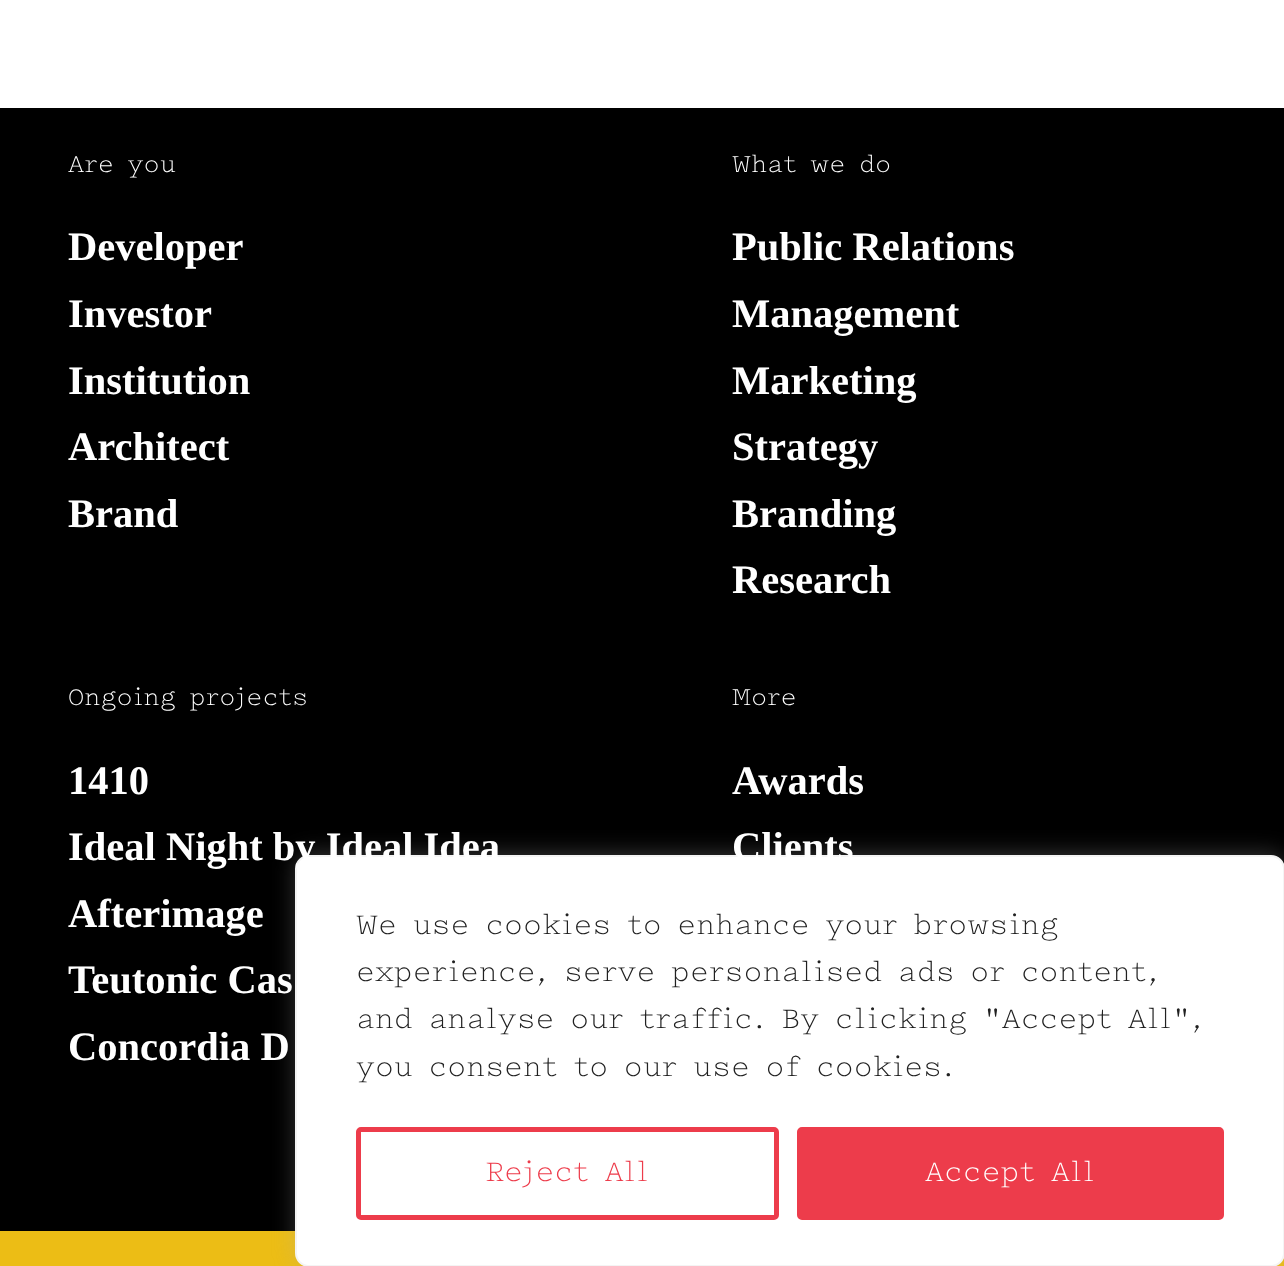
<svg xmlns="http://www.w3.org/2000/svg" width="1284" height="1266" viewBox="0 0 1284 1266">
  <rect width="100%" height="100%" fill="#fff"/>
  <path d="M0 108h1284v1123H0z" fill="#000"/>
  <path d="M0 1231h1284v35H0z" fill="#ecbd15"/>
  <rect x="295" y="853" width="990" height="412" rx="14" fill="#acabab4d" filter="blur(11px)"/>
  <rect x="296" y="856" width="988" height="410" rx="13" fill="#fff" stroke="#f4f4f4" stroke-width="2"/>
  <rect x="358.5" y="1129.5" width="418" height="88" rx="2.5" fill="none" stroke="#ed3c4b" stroke-width="5"/>
  <rect x="799.5" y="1129.5" width="422" height="88" rx="2.5" fill="#ed3c4b" stroke="#ed3c4b" stroke-width="5"/>
  <text x="68" y="172" font-family="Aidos" font-size="27" font-weight="300" fill="#fff">Are you</text>
  <g font-family="Liberation Serif" font-size="40.5" font-weight="bold" fill="#fff">
    <text x="68" y="260">Developer</text>
    <text x="68" y="327">Investor</text>
    <text x="68" y="394">Institution</text>
    <text x="68" y="460">Architect</text>
    <text x="68" y="527">Brand</text>
  </g>
  <text x="732" y="172" font-family="Aidos" font-size="27" font-weight="300" fill="#fff">What we do</text>
  <g font-family="Liberation Serif" font-size="40.5" font-weight="bold" fill="#fff">
    <text x="732" y="260">Public Relations</text>
    <text x="732" y="327">Management</text>
    <text x="732" y="394">Marketing</text>
    <text x="732" y="460">Strategy</text>
    <text x="732" y="527">Branding</text>
    <text x="732" y="593">Research</text>
  </g>
  <text x="68" y="705" font-family="Aidos" font-size="27" font-weight="300" fill="#fff">Ongoing projects</text>
  <g font-family="Liberation Serif" font-size="40.5" font-weight="bold" fill="#fff">
    <text x="68" y="794">1410</text>
    <text x="68" y="860">Ideal Night by Ideal Idea</text>
    <text x="68" y="927">Afterimage</text>
    <text x="68" y="993">Teutonic Cas</text>
    <text x="68" y="1060">Concordia D</text>
  </g>
  <text x="732" y="705" font-family="Aidos" font-size="27" font-weight="300" fill="#fff">More</text>
  <g font-family="Liberation Serif" font-size="40.5" font-weight="bold" fill="#fff">
    <text x="732" y="794">Awards</text>
    <text x="732" y="860">Clients</text>
  </g>
  <g font-family="Aidos" font-size="31.5" font-weight="300" fill="#212121">
    <text x="356" y="934">We use cookies to enhance your browsing</text>
    <text x="356" y="981">experience, serve personalised ads or content,</text>
    <text x="356" y="1028">and analyse our traffic. By clicking "Accept All",</text>
    <text x="356" y="1076">you consent to our use of cookies.</text>
  </g>
  <text x="485" y="1181" font-family="Aidos" font-size="31.5" font-weight="300" fill="#ed3c4b">Reject All</text>
  <text x="925" y="1181" font-family="Aidos" font-size="31.5" font-weight="300" fill="#fff">Accept All</text>
</svg>
